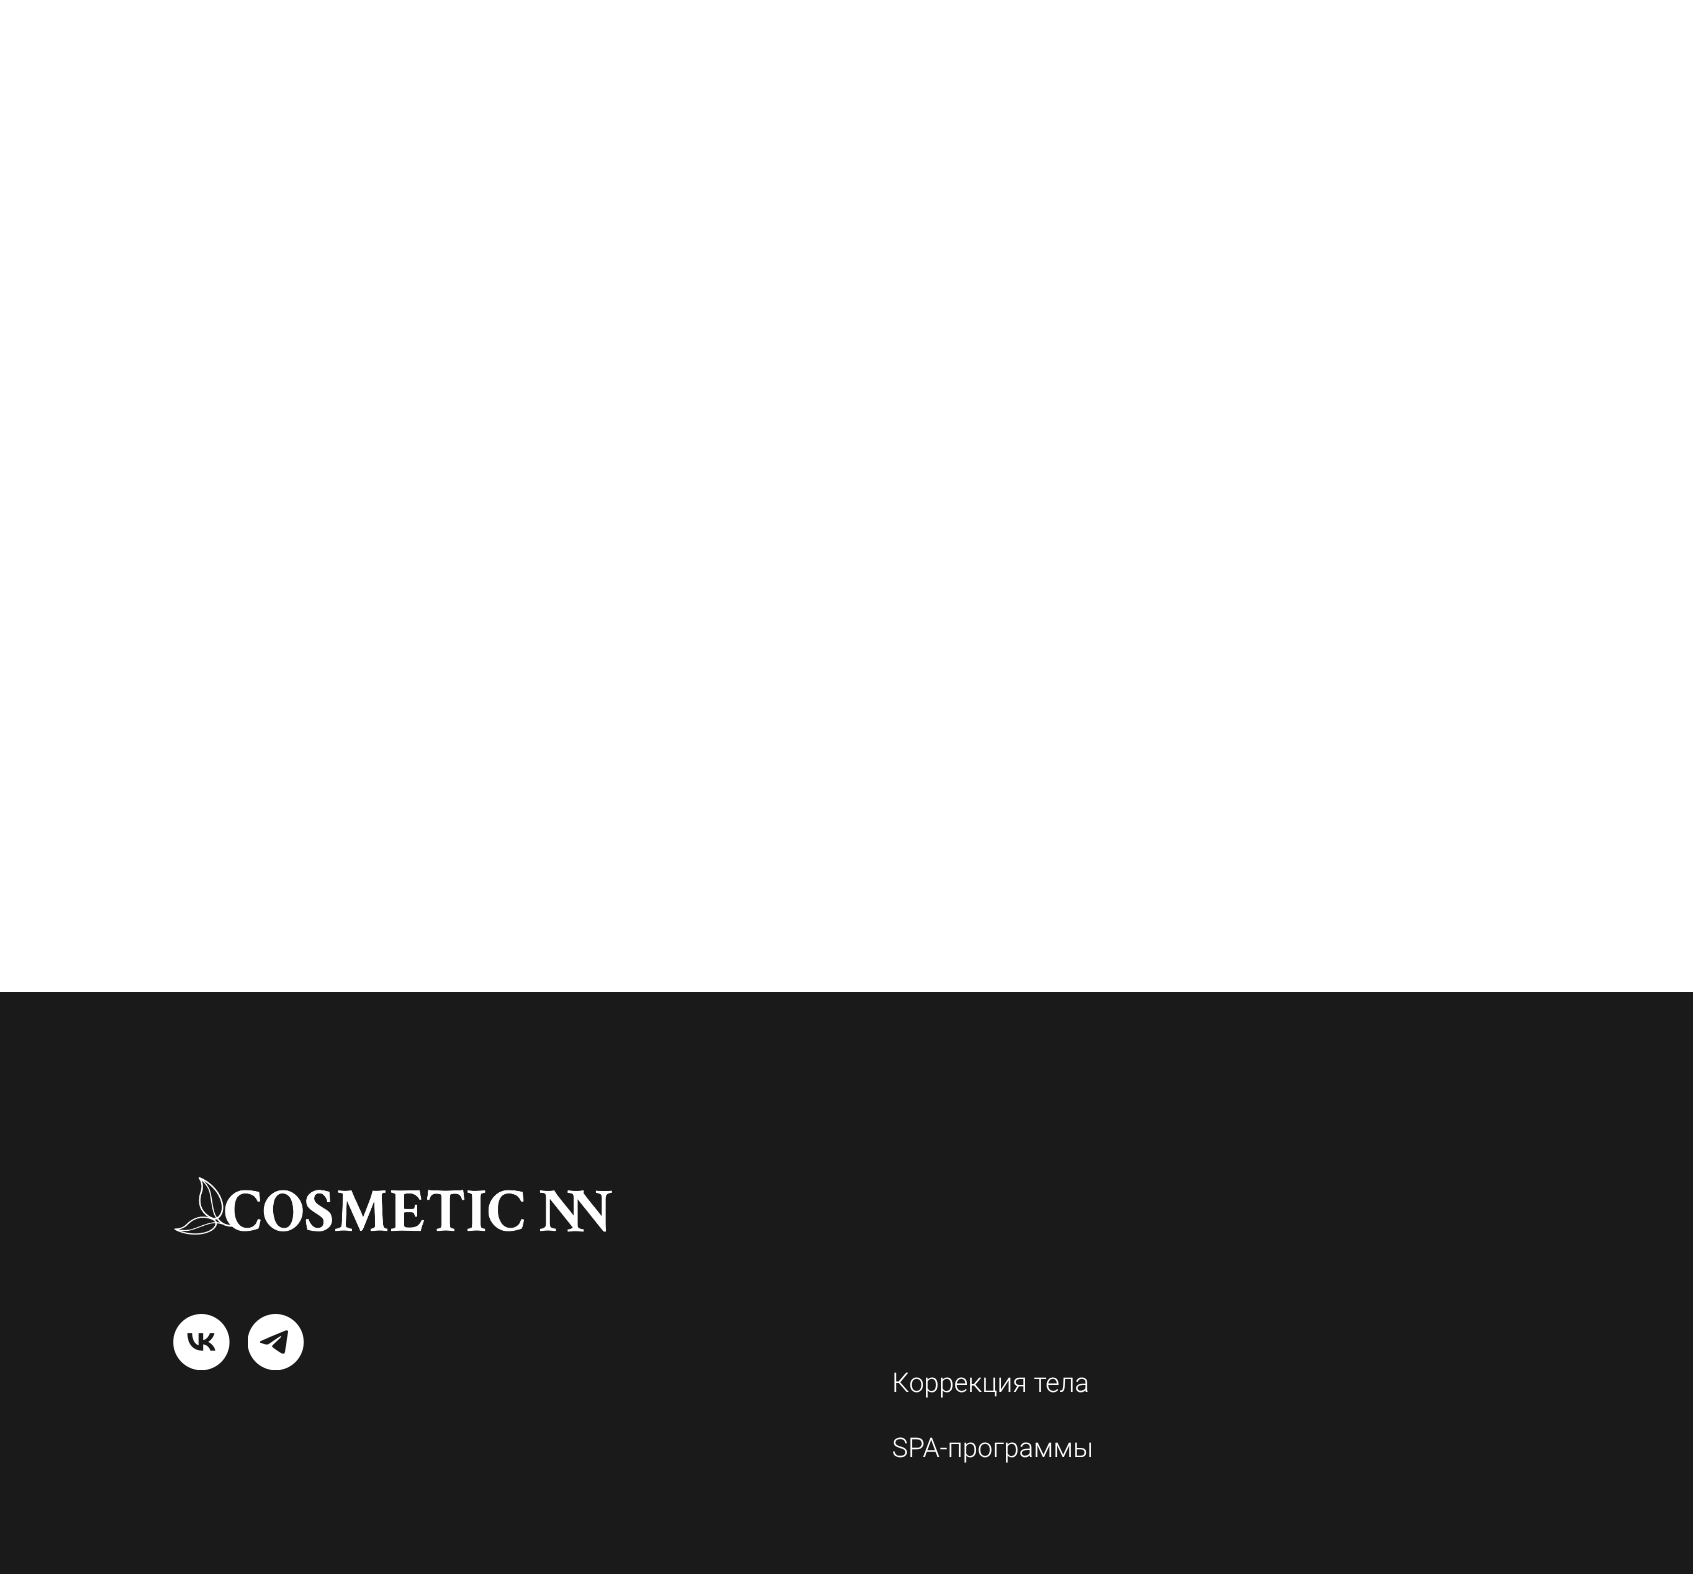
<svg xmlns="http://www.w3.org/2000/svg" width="1693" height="1574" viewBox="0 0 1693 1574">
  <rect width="100%" height="100%" fill="#fff"/>
  <path d="M0 992h1693v582H0z" fill="#1a1a1a"/>
  <image x="174" y="1177" width="438" height="58" href="img/1.png"/>
  <image x="173" y="1314" width="57" height="56" href="img/2.png"/>
  <image x="248" y="1314" width="56" height="56" href="img/3.png"/>
  <g font-family="Roboto" font-size="27" font-weight="300" fill="#fff">
    <text x="892" y="1392">Коррекция тела</text>
    <text x="892" y="1457">SPA-программы</text>
  </g>
</svg>
